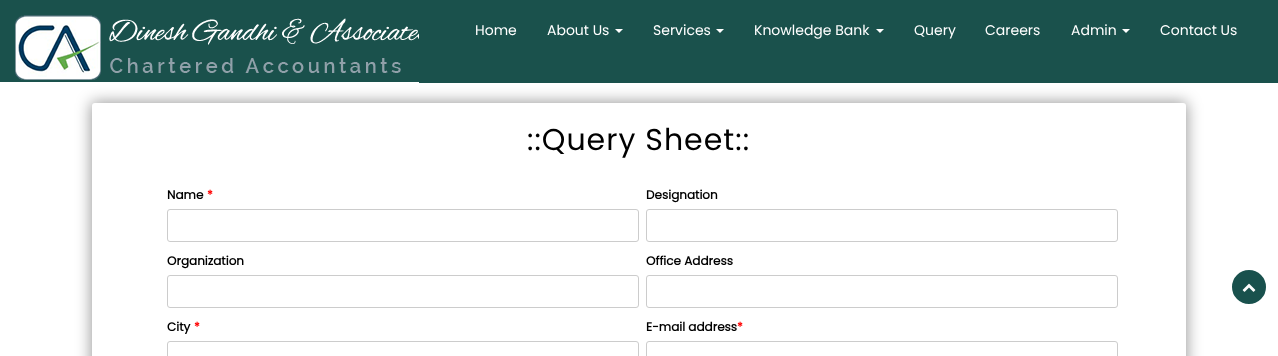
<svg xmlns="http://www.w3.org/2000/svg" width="1278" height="356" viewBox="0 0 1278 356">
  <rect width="100%" height="100%" fill="#fff"/>
  <rect x="91" y="102" width="1096" height="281" rx="4" fill="#00000066" filter="blur(7.5px)"/>
  <path d="M0 0h419v82H0z" fill="#1a514c"/>
  <image x="15" y="15" width="404" height="65" href="img/1.png"/>
  <path d="M419 0h859v83H419z" fill="#1a514c"/>
  <path d="M615 29H623L619 33Z" fill="#fff"/>
  <path d="M716 29H724L720 33Z" fill="#fff"/>
  <path d="M876 29H884L880 33Z" fill="#fff"/>
  <path d="M1122 29H1130L1126 33Z" fill="#fff"/>
  <rect x="92" y="103" width="1094" height="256" rx="3" fill="#fff"/>
  <rect x="167.5" y="209.5" width="471" height="32" rx="2.5" fill="none" stroke="#ccc"/>
  <rect x="646.5" y="209.5" width="471" height="32" rx="2.5" fill="none" stroke="#ccc"/>
  <rect x="167.5" y="275.5" width="471" height="32" rx="2.5" fill="none" stroke="#ccc"/>
  <rect x="646.5" y="275.5" width="471" height="32" rx="2.5" fill="none" stroke="#ccc"/>
  <rect x="167.5" y="341.5" width="471" height="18" rx="2.5" fill="none" stroke="#ccc"/>
  <rect x="646.5" y="341.5" width="471" height="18" rx="2.5" fill="none" stroke="#ccc"/>
  <circle cx="1249" cy="287" r="18" fill="#19514d" stroke="#fff" stroke-width="2"/>
  <image x="1242" y="283" width="14" height="9" href="img/2.png"/>
  <g font-family="Poppins" font-size="14" fill="#fff">
    <text x="475" y="35">Home</text>
    <text x="547" y="35">About Us</text>
    <text x="653" y="35">Services</text>
    <text x="754" y="35">Knowledge Bank</text>
    <text x="914" y="35">Query</text>
    <text x="985" y="35">Careers</text>
    <text x="1071" y="35">Admin</text>
    <text x="1160" y="35">Contact Us</text>
  </g>
  <text x="527" y="150" font-family="Poppins" font-size="30" letter-spacing="1" fill="#000">::Query Sheet::</text>
  <text x="167" y="199" font-family="Poppins" font-size="12" font-weight="bold" fill="#000">Name</text>
  <text x="207" y="199" font-family="Poppins" font-size="12" font-weight="bold" fill="#f00">*</text>
  <g font-family="Poppins" font-size="12" font-weight="bold" fill="#000">
    <text x="646" y="199">Designation</text>
    <text x="167" y="265">Organization</text>
    <text x="646" y="265">Office Address</text>
    <text x="167" y="331">City</text>
  </g>
  <text x="194" y="331" font-family="Poppins" font-size="12" font-weight="bold" fill="#f00">*</text>
  <text x="646" y="331" font-family="Poppins" font-size="12" font-weight="bold" fill="#000">E-mail address</text>
  <text x="737" y="331" font-family="Poppins" font-size="12" font-weight="bold" fill="#f00">*</text>
</svg>
